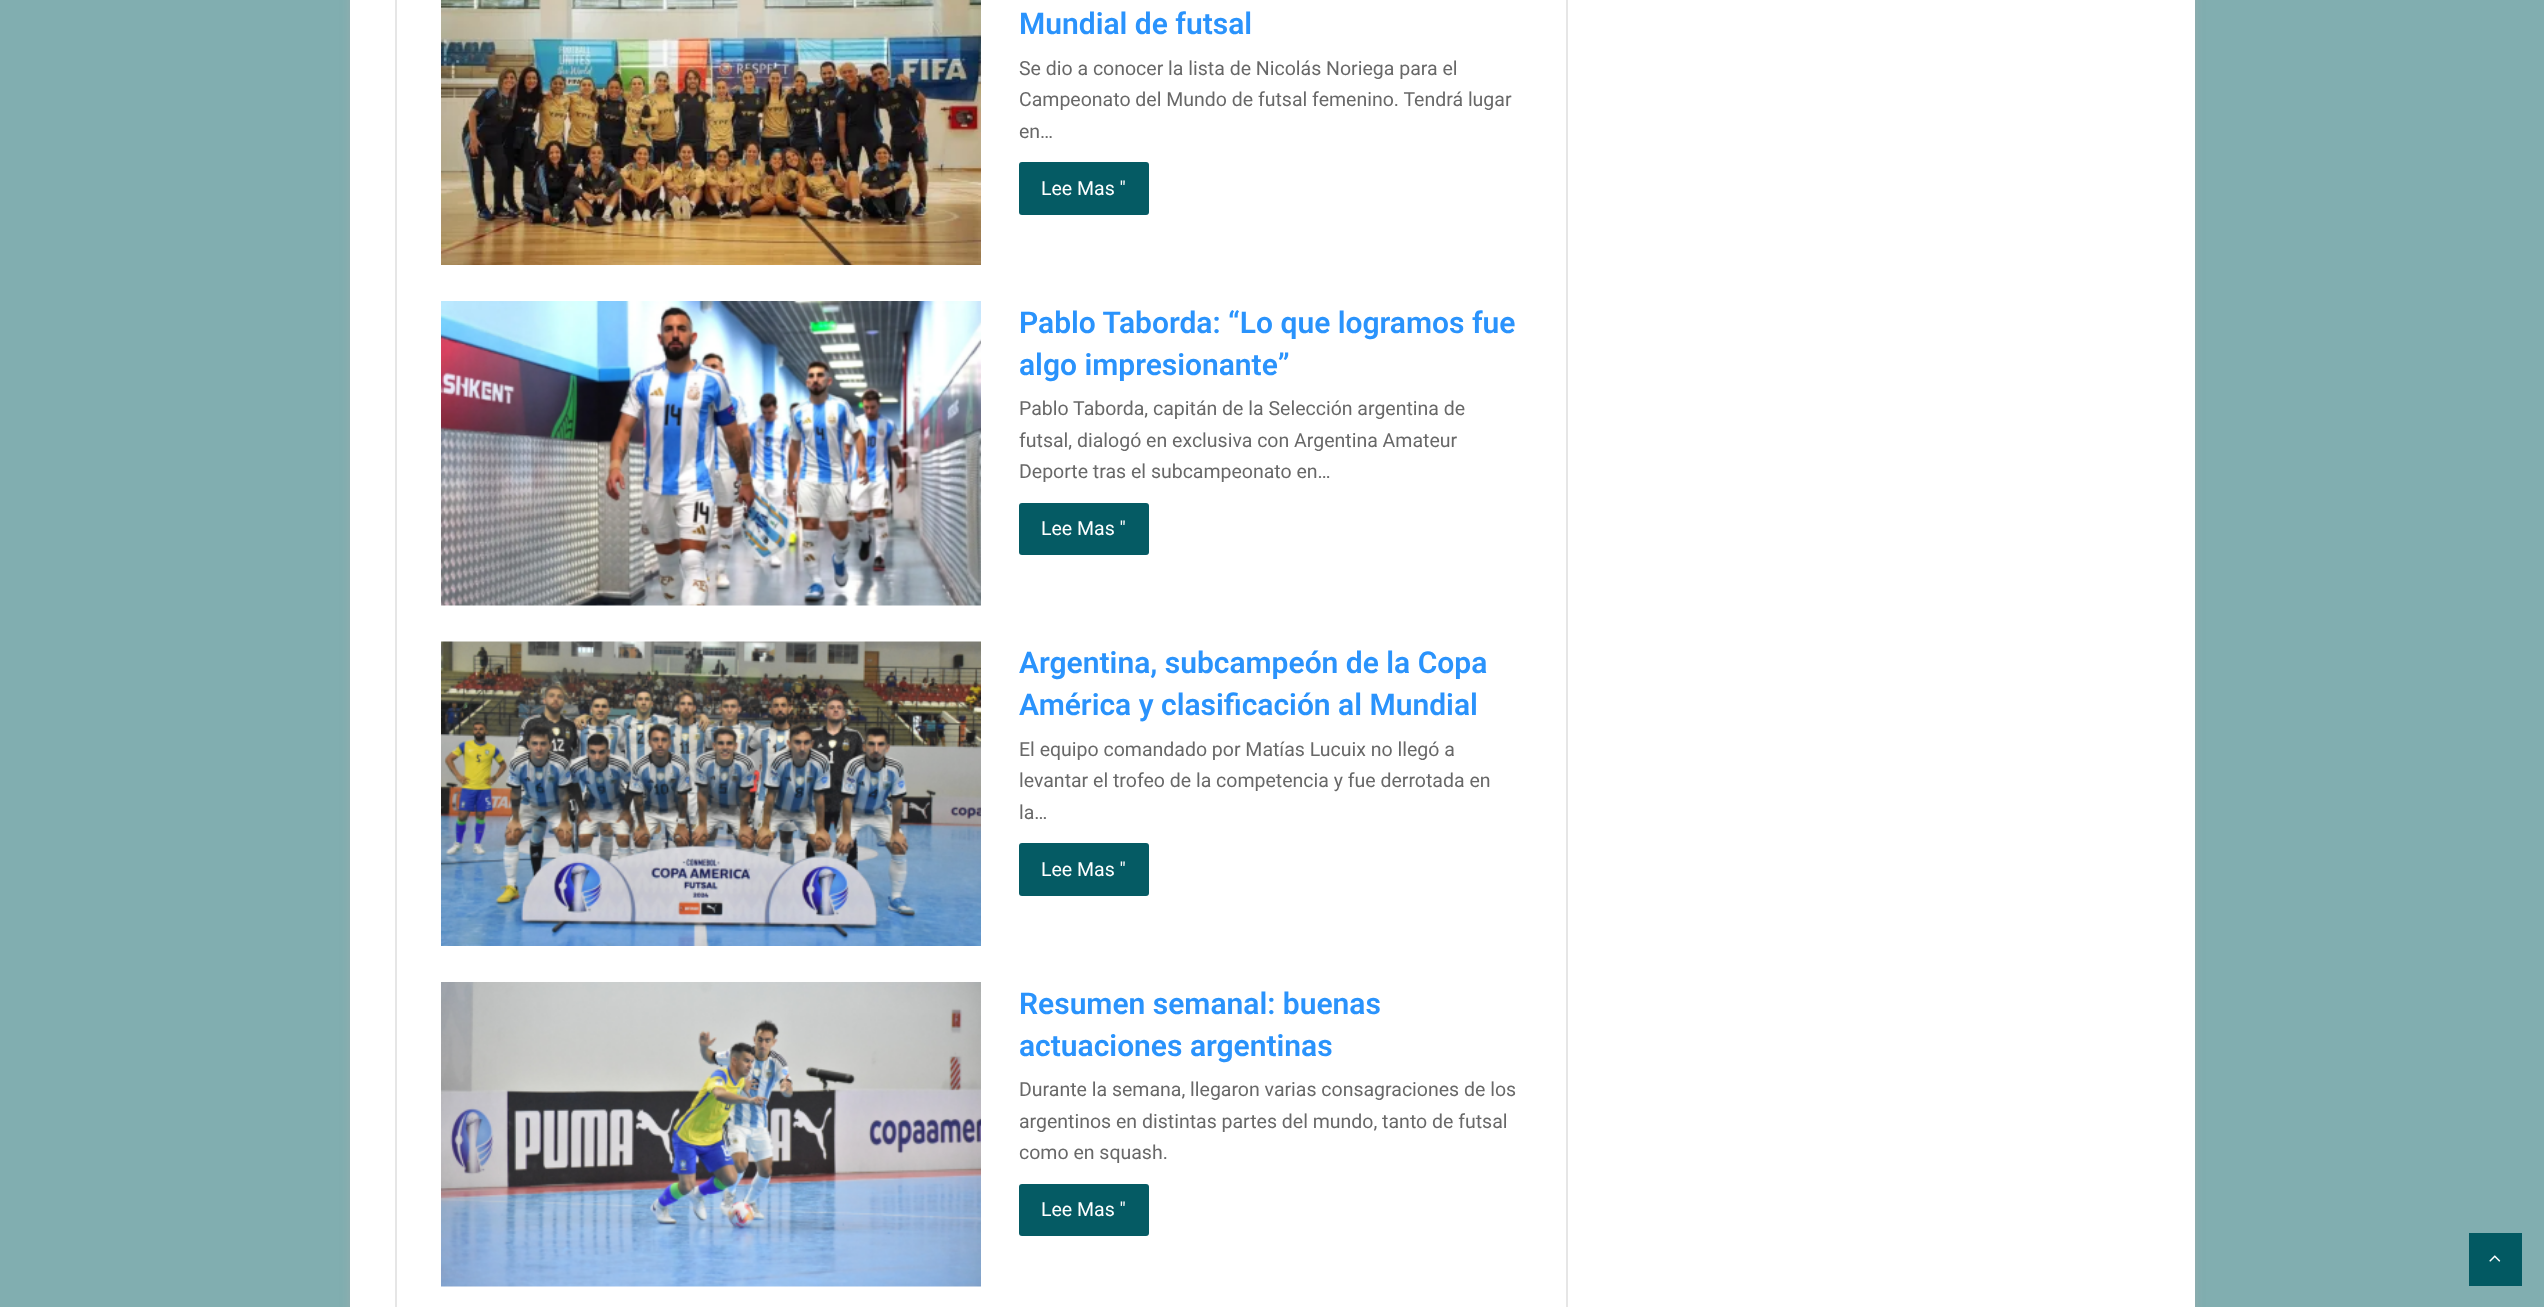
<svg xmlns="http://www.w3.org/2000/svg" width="2544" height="1307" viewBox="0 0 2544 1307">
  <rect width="100%" height="100%" fill="#81aeb0"/>
  <path d="M350 -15h1845v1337H350z" fill="#ababab80" filter="blur(5px)"/>
  <path d="M350 0h1845v1307H350z" fill="#fff"/>
  <path d="M1566 0h2v1307H1566z" fill="#e6e6e6"/>
  <path d="M395 0h2v1307H395z" fill="#e6e6e6"/>
  <image x="441" y="0" width="540" height="265" href="img/1.png"/>
  <rect x="1019" y="162" width="130" height="53" rx="3" fill="#055b64"/>
  <image x="441" y="301" width="540" height="305" href="img/2.png"/>
  <rect x="1019" y="503" width="130" height="52" rx="3" fill="#055b64"/>
  <image x="441" y="641" width="540" height="305" href="img/3.png"/>
  <rect x="1019" y="843" width="130" height="53" rx="3" fill="#055b64"/>
  <image x="441" y="982" width="540" height="305" href="img/4.png"/>
  <rect x="1019" y="1184" width="130" height="52" rx="3" fill="#055b64"/>
  <path d="M2469 1233h53v53H2469z" fill="#025962"/>
  <image x="2489" y="1255" width="12" height="7" href="img/5.png"/>
  <text x="1019" y="34" font-family="Roboto" font-size="30" font-weight="600" fill="#2a93fc">Mundial de futsal</text>
  <g font-family="Roboto" font-size="19.5" fill="#686868">
    <text x="1019" y="75">Se dio a conocer la lista de Nicolás Noriega para el</text>
    <text x="1019" y="106">Campeonato del Mundo de futsal femenino. Tendrá lugar</text>
    <text x="1019" y="138">en…</text>
  </g>
  <text x="1041" y="195" font-family="Roboto" font-size="19.5" fill="#fff">Lee Mas "</text>
  <g font-family="Roboto" font-size="30" font-weight="600" fill="#2a93fc">
    <text x="1019" y="333">Pablo Taborda: “Lo que logramos fue</text>
    <text x="1019" y="375">algo impresionante”</text>
  </g>
  <g font-family="Roboto" font-size="19.5" fill="#686868">
    <text x="1019" y="415">Pablo Taborda, capitán de la Selección argentina de</text>
    <text x="1019" y="447">futsal, dialogó en exclusiva con Argentina Amateur</text>
    <text x="1019" y="478">Deporte tras el subcampeonato en…</text>
  </g>
  <text x="1041" y="535" font-family="Roboto" font-size="19.5" fill="#fff">Lee Mas "</text>
  <g font-family="Roboto" font-size="30" font-weight="600" fill="#2a93fc">
    <text x="1019" y="673">Argentina, subcampeón de la Copa</text>
    <text x="1019" y="715">América y clasificación al Mundial</text>
  </g>
  <g font-family="Roboto" font-size="19.5" fill="#686868">
    <text x="1019" y="756">El equipo comandado por Matías Lucuix no llegó a</text>
    <text x="1019" y="787">levantar el trofeo de la competencia y fue derrotada en</text>
    <text x="1019" y="819">la…</text>
  </g>
  <text x="1041" y="876" font-family="Roboto" font-size="19.5" fill="#fff">Lee Mas "</text>
  <g font-family="Roboto" font-size="30" font-weight="600" fill="#2a93fc">
    <text x="1019" y="1014">Resumen semanal: buenas</text>
    <text x="1019" y="1056">actuaciones argentinas</text>
  </g>
  <g font-family="Roboto" font-size="19.5" fill="#686868">
    <text x="1019" y="1096">Durante la semana, llegaron varias consagraciones de los</text>
    <text x="1019" y="1128">argentinos en distintas partes del mundo, tanto de futsal</text>
    <text x="1019" y="1159">como en squash.</text>
  </g>
  <text x="1041" y="1216" font-family="Roboto" font-size="19.5" fill="#fff">Lee Mas "</text>
</svg>
